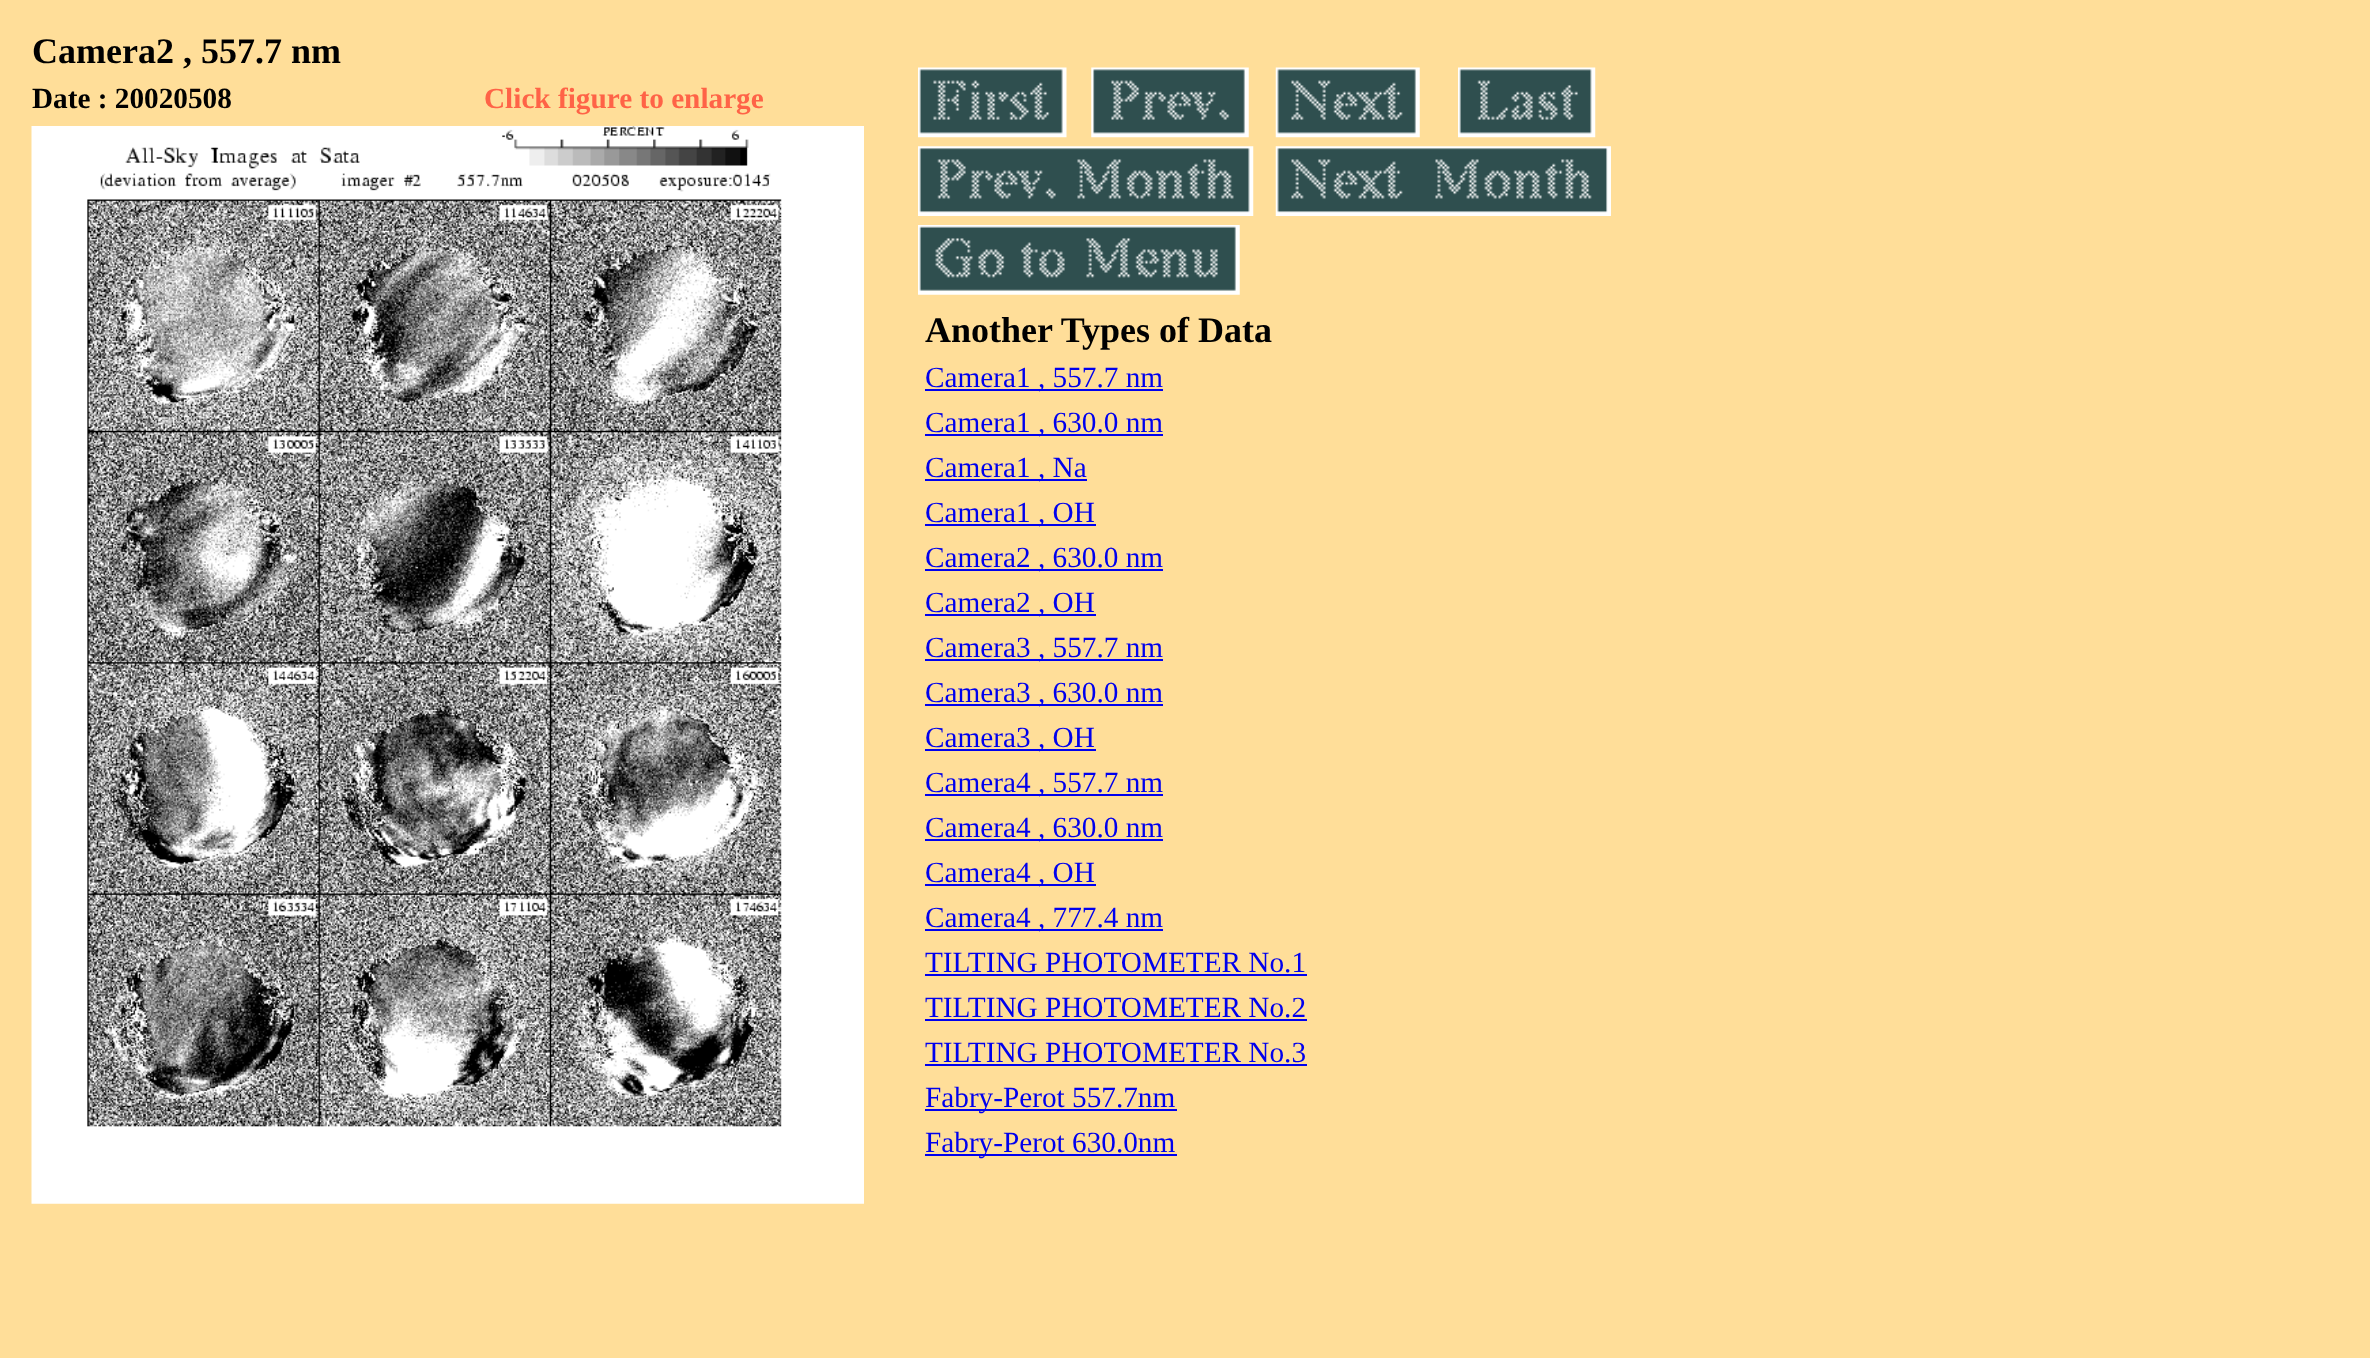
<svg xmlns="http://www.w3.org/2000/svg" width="2370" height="1358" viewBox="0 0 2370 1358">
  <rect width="100%" height="100%" fill="#ffde99"/>
  <image x="31" y="126" width="833" height="1078" href="img/1.png"/>
  <image x="918" y="67" width="149" height="71" href="img/2.png"/>
  <image x="1091" y="67" width="158" height="71" href="img/3.png"/>
  <image x="1275" y="67" width="145" height="71" href="img/4.png"/>
  <image x="1458" y="67" width="138" height="71" href="img/5.png"/>
  <image x="918" y="146" width="336" height="70" href="img/6.png"/>
  <image x="1275" y="146" width="336" height="70" href="img/7.png"/>
  <image x="918" y="225" width="322" height="70" href="img/8.png"/>
  <path d="M925 389h238v2H925z" fill="#00e"/>
  <path d="M925 434h238v2H925z" fill="#00e"/>
  <path d="M925 479h162v2H925z" fill="#00e"/>
  <path d="M925 524h171v2H925z" fill="#00e"/>
  <path d="M925 569h238v2H925z" fill="#00e"/>
  <path d="M925 614h171v2H925z" fill="#00e"/>
  <path d="M925 659h238v2H925z" fill="#00e"/>
  <path d="M925 704h238v2H925z" fill="#00e"/>
  <path d="M925 749h171v2H925z" fill="#00e"/>
  <path d="M925 794h238v2H925z" fill="#00e"/>
  <path d="M925 839h238v2H925z" fill="#00e"/>
  <path d="M925 884h171v2H925z" fill="#00e"/>
  <path d="M925 929h238v2H925z" fill="#00e"/>
  <path d="M925 974h382v2H925z" fill="#00e"/>
  <path d="M925 1019h382v2H925z" fill="#00e"/>
  <path d="M925 1064h382v2H925z" fill="#00e"/>
  <path d="M925 1109h252v2H925z" fill="#00e"/>
  <path d="M925 1154h252v2H925z" fill="#00e"/>
  <text x="32" y="63" font-family="Liberation Serif" font-size="36" font-weight="bold" fill="#000">Camera2 , 557.7 nm</text>
  <text x="32" y="108" font-family="Liberation Serif" font-size="29.25" font-weight="bold" fill="#000">Date : 20020508</text>
  <text x="484" y="108" font-family="Liberation Serif" font-size="29.25" font-weight="bold" fill="#ff6347">Click figure to enlarge</text>
  <text x="925" y="342" font-family="Liberation Serif" font-size="36" font-weight="bold" fill="#000">Another Types of Data</text>
  <g font-family="Liberation Serif" font-size="29.25" fill="#00e">
    <text x="925" y="387">Camera1 , 557.7 nm</text>
    <text x="925" y="432">Camera1 , 630.0 nm</text>
    <text x="925" y="477">Camera1 , Na</text>
    <text x="925" y="522">Camera1 , OH</text>
    <text x="925" y="567">Camera2 , 630.0 nm</text>
    <text x="925" y="612">Camera2 , OH</text>
    <text x="925" y="657">Camera3 , 557.7 nm</text>
    <text x="925" y="702">Camera3 , 630.0 nm</text>
    <text x="925" y="747">Camera3 , OH</text>
    <text x="925" y="792">Camera4 , 557.7 nm</text>
    <text x="925" y="837">Camera4 , 630.0 nm</text>
    <text x="925" y="882">Camera4 , OH</text>
    <text x="925" y="927">Camera4 , 777.4 nm</text>
    <text x="925" y="972">TILTING PHOTOMETER No.1</text>
    <text x="925" y="1017">TILTING PHOTOMETER No.2</text>
    <text x="925" y="1062">TILTING PHOTOMETER No.3</text>
    <text x="925" y="1107">Fabry-Perot 557.7nm</text>
    <text x="925" y="1152">Fabry-Perot 630.0nm</text>
  </g>
</svg>
